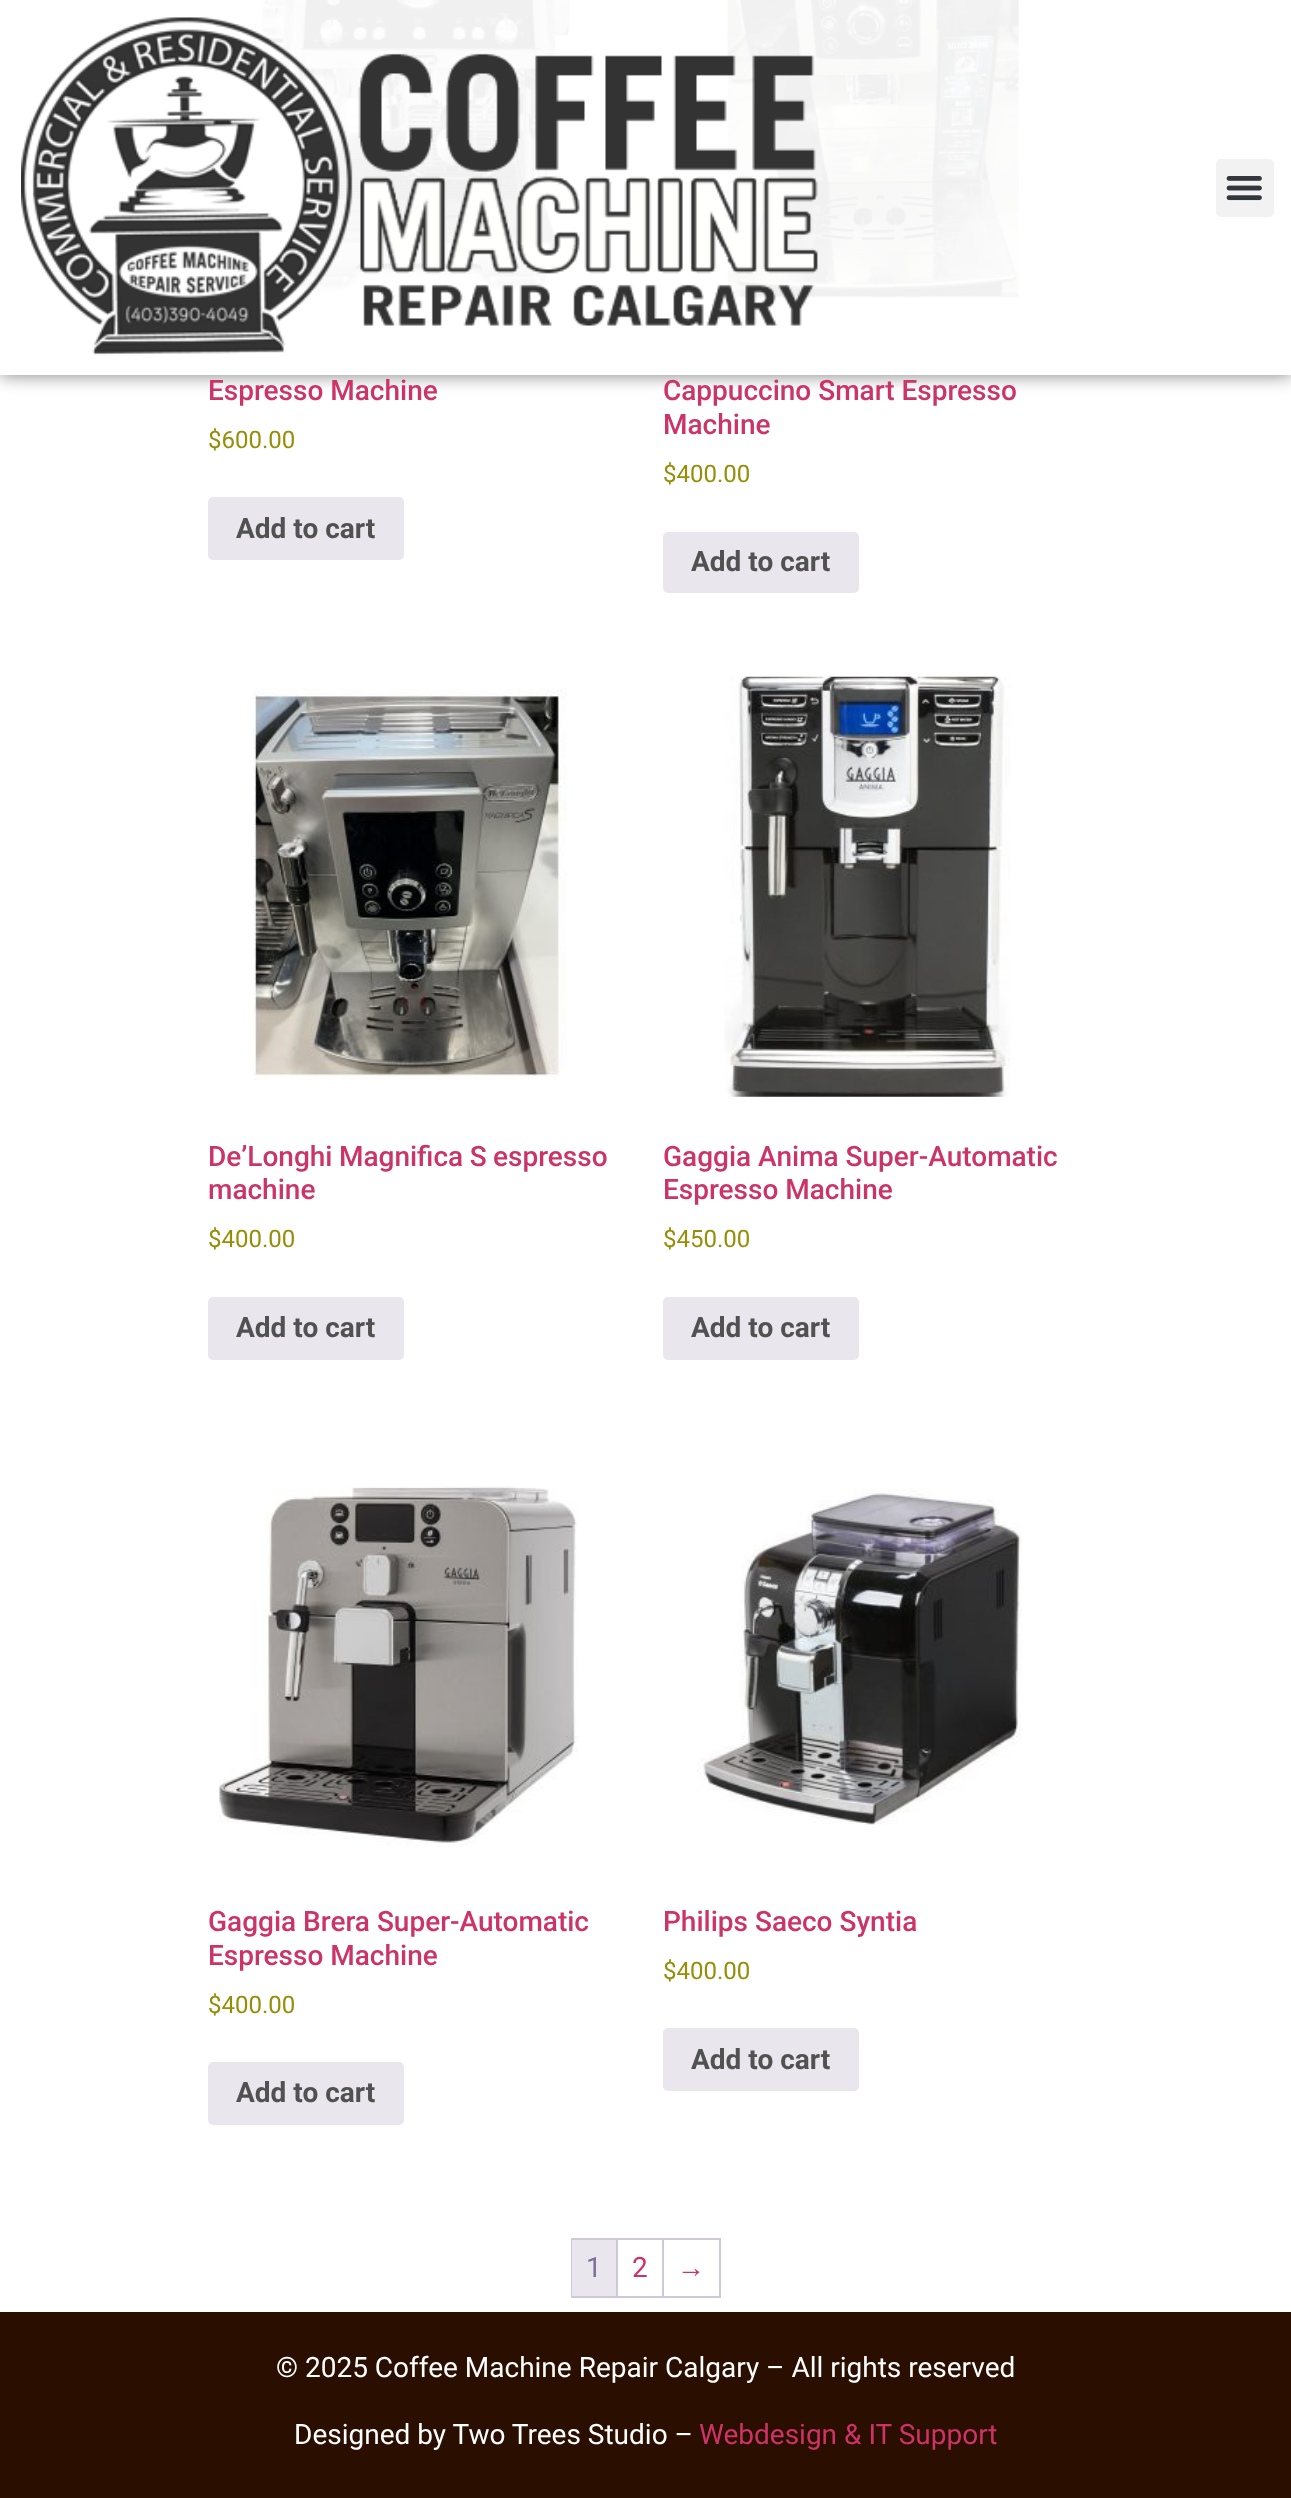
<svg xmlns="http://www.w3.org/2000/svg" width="1291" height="2498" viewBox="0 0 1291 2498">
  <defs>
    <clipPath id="clip1"><path d="M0 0H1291V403H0ZM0 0H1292V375H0Z" clip-rule="evenodd"/></clipPath>
  </defs>
  <rect width="100%" height="100%" fill="#fff"/>
  <image x="260" y="0" width="318" height="296" href="img/3.png"/>
  <image x="721" y="0" width="301" height="299" href="img/4.png"/>
  <g clip-path="url(#clip1)">
    <path d="M0 0h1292v375H0z" fill="#00000080" filter="blur(9px)"/>
  </g>
  <path d="M0 0h1291v375H0z" fill="#fffffff0"/>
  <image x="21" y="17" width="797" height="340" href="img/1.png"/>
  <rect x="1216" y="159" width="58" height="58" rx="5" fill="#f2f2f2"/>
  <image x="1226" y="176" width="36" height="25" href="img/2.png"/>
  <rect x="208" y="497" width="196" height="63" rx="5" fill="#e9e6ed"/>
  <rect x="663" y="532" width="196" height="61" rx="5" fill="#e9e6ed"/>
  <image x="253" y="688" width="314" height="392" href="img/5.png"/>
  <rect x="208" y="1297" width="196" height="63" rx="5" fill="#e9e6ed"/>
  <image x="724" y="676" width="287" height="421" href="img/6.png"/>
  <rect x="663" y="1297" width="196" height="63" rx="5" fill="#e9e6ed"/>
  <image x="219" y="1486" width="359" height="360" href="img/7.png"/>
  <rect x="208" y="2062" width="196" height="63" rx="5" fill="#e9e6ed"/>
  <image x="697" y="1488" width="325" height="337" href="img/8.png"/>
  <rect x="663" y="2028" width="196" height="63" rx="5" fill="#e9e6ed"/>
  <path d="M571 2238h150v2H571z" fill="#cfc8d8"/>
  <path d="M571 2296h150v2H571z" fill="#cfc8d8"/>
  <path d="M571 2238h2v60H571z" fill="#cfc8d8"/>
  <path d="M616 2240h2v56H616z" fill="#cfc8d8"/>
  <path d="M572 2240h44v56H572z" fill="#e9e6ed"/>
  <path d="M662 2240h2v56H662z" fill="#cfc8d8"/>
  <path d="M719 2240h2v56H719z" fill="#cfc8d8"/>
  <path d="M0 2312h1291v186H0z" fill="#2a0f00"/>
  <text x="208" y="400" font-family="Roboto" font-size="28" font-weight="500" fill="#c36">Espresso Machine</text>
  <text x="208" y="448" font-family="Roboto" font-size="24" fill="#958e09">$600.00</text>
  <text x="236" y="538" font-family="Roboto" font-size="28" font-weight="bold" fill="#515151">Add to cart</text>
  <g font-family="Roboto" font-size="28" font-weight="500" fill="#c36">
    <text x="663" y="400">Cappuccino Smart Espresso</text>
    <text x="663" y="434">Machine</text>
  </g>
  <text x="663" y="482" font-family="Roboto" font-size="24" fill="#958e09">$400.00</text>
  <text x="691" y="571" font-family="Roboto" font-size="28" font-weight="bold" fill="#515151">Add to cart</text>
  <g font-family="Roboto" font-size="28" font-weight="500" fill="#c36">
    <text x="208" y="1166" word-spacing="-0.5">De’Longhi Magnifica S espresso</text>
    <text x="208" y="1199">machine</text>
  </g>
  <text x="208" y="1247" font-family="Roboto" font-size="24" fill="#958e09">$400.00</text>
  <text x="236" y="1337" font-family="Roboto" font-size="28" font-weight="bold" fill="#515151">Add to cart</text>
  <g font-family="Roboto" font-size="28" font-weight="500" fill="#c36">
    <text x="663" y="1166">Gaggia Anima Super-Automatic</text>
    <text x="663" y="1199">Espresso Machine</text>
  </g>
  <text x="663" y="1247" font-family="Roboto" font-size="24" fill="#958e09">$450.00</text>
  <text x="691" y="1337" font-family="Roboto" font-size="28" font-weight="bold" fill="#515151">Add to cart</text>
  <g font-family="Roboto" font-size="28" font-weight="500" fill="#c36">
    <text x="208" y="1931">Gaggia Brera Super-Automatic</text>
    <text x="208" y="1965">Espresso Machine</text>
  </g>
  <text x="208" y="2013" font-family="Roboto" font-size="24" fill="#958e09">$400.00</text>
  <text x="236" y="2102" font-family="Roboto" font-size="28" font-weight="bold" fill="#515151">Add to cart</text>
  <text x="663" y="1931" font-family="Roboto" font-size="28" font-weight="500" fill="#c36">Philips Saeco Syntia</text>
  <text x="663" y="1979" font-family="Roboto" font-size="24" fill="#958e09">$400.00</text>
  <text x="691" y="2069" font-family="Roboto" font-size="28" font-weight="bold" fill="#515151">Add to cart</text>
  <text x="586" y="2277" font-family="Roboto" font-size="28" fill="#816f98">1</text>
  <text x="632" y="2277" font-family="Roboto" font-size="28" fill="#c36">2</text>
  <text x="677" y="2277" font-family="Liberation Sans" font-size="28" fill="#c36">→</text>
  <g font-family="Roboto" font-size="28" fill="#fff">
    <text x="276" y="2377">© 2025 Coffee Machine Repair Calgary – All rights reserved</text>
    <text x="294" y="2444">Designed by Two Trees Studio –</text>
  </g>
  <text x="699" y="2444" font-family="Roboto" font-size="28" fill="#c36">Webdesign &amp; IT Support</text>
</svg>
